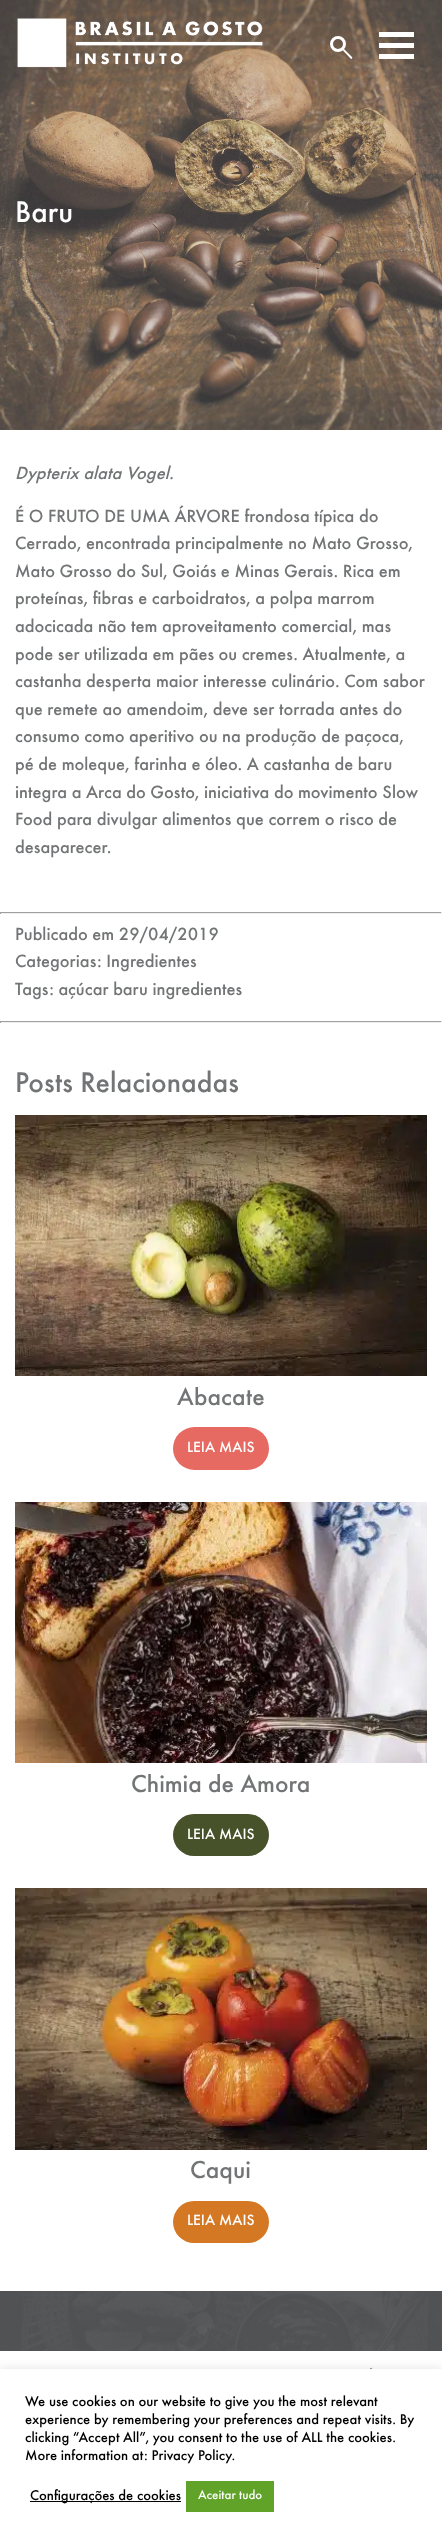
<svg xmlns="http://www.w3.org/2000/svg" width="442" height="2542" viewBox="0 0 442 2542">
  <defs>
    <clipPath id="clip1"><path d="M15 1387h412v25H15z"/></clipPath>
    <clipPath id="clip2"><path d="M15 1774h412v25H15z"/></clipPath>
  </defs>
  <rect width="100%" height="100%" fill="#fff"/>
  <image x="0" y="0" width="442" height="430" href="img/2.png"/>
  <image x="17" y="18" width="246" height="50" href="img/1.png"/>
  <circle cx="338" cy="44" r="6.5" fill="none" stroke="#fff" stroke-width="3"/>
  <path d="M344 49L352 57C352.5 57.5 352.5 58 352 58.5C351.5 59 351 59 350.5 58.5L342.5 50Z" fill="#fff"/>
  <path d="M379 32h35v5H379z" fill="#fff"/>
  <path d="M379 43h35v5H379z" fill="#fff"/>
  <path d="M379 54h35v5H379z" fill="#fff"/>
  <path d="M0 912h442v1H0z" fill="#9f9f9f"/>
  <path d="M441 912h1v2H441z" fill="#eee"/>
  <path d="M0 913h442v1H0z" fill="#eee"/>
  <path d="M0 912h1v2H0z" fill="#9f9f9f"/>
  <path d="M0 1021h442v1H0z" fill="#9f9f9f"/>
  <path d="M441 1021h1v2H441z" fill="#eee"/>
  <path d="M0 1022h442v1H0z" fill="#eee"/>
  <path d="M0 1021h1v2H0z" fill="#9f9f9f"/>
  <image x="15" y="1115" width="412" height="261" href="img/3.png"/>
  <rect x="173" y="1427" width="96" height="43" rx="21.5" fill="#e66962"/>
  <image x="15" y="1502" width="412" height="261" href="img/4.png"/>
  <rect x="173" y="1814" width="96" height="42" rx="21" fill="#47512a"/>
  <image x="15" y="1888" width="412" height="262" href="img/5.png"/>
  <rect x="173" y="2201" width="96" height="42" rx="21" fill="#d57824"/>
  <image x="0" y="2291" width="442" height="60" href="img/6.png"/>
  <image x="370" y="2367" width="2" height="2" href="img/7.png"/>
  <path d="M0 2368h442v173H0z" fill="#acabab4d" filter="blur(5px)"/>
  <path d="M0 2369h442v173H0z" fill="#fff"/>
  <path d="M30 2501h151v1H30z" fill="#000"/>
  <path d="M186 2481h88v31H186z" fill="#61a229"/>
  <text x="15" y="222" font-family="Futura" font-size="31" font-weight="500" fill="#fff">Baru</text>
  <text x="15" y="479" font-family="Futura" font-size="18.4" font-weight="500" font-style="italic" fill="#727475">Dypterix alata Vogel.</text>
  <g font-family="Futura" font-size="18.4" font-weight="500" fill="#727475">
    <text x="15" y="522">É O FRUTO DE UMA ÁRVORE frondosa típica do</text>
    <text x="15" y="549">Cerrado, encontrada principalmente no Mato Grosso,</text>
    <text x="15" y="577">Mato Grosso do Sul, Goiás e Minas Gerais. Rica em</text>
    <text x="15" y="604">proteínas, fibras e carboidratos, a polpa marrom</text>
    <text x="15" y="632">adocicada não tem aproveitamento comercial, mas</text>
    <text x="15" y="660">pode ser utilizada em pães ou cremes. Atualmente, a</text>
    <text x="15" y="687">castanha desperta maior interesse culinário. Com sabor</text>
    <text x="15" y="715">que remete ao amendoim, deve ser torrada antes do</text>
    <text x="15" y="742">consumo como aperitivo ou na produção de paçoca,</text>
    <text x="15" y="770">pé de moleque, farinha e óleo. A castanha de baru</text>
    <text x="15" y="798">integra a Arca do Gosto, iniciativa do movimento Slow</text>
    <text x="15" y="825">Food para divulgar alimentos que correm o risco de</text>
    <text x="15" y="853">desaparecer.</text>
    <text x="15" y="940">Publicado em 29/04/2019</text>
    <text x="15" y="967">Categorias: Ingredientes</text>
    <text x="15" y="995">Tags: açúcar baru ingredientes</text>
  </g>
  <text x="15" y="1092" font-family="Futura" font-size="29.5" font-weight="500" fill="#727475">Posts Relacionadas</text>
  <g clip-path="url(#clip1)">
    <text x="177" y="1405" font-family="Futura" font-size="25.5" font-weight="500" fill="#727475">Abacate</text>
  </g>
  <text x="187" y="1452" font-family="Futura" font-size="15.5" font-weight="500" fill="#fff">LEIA MAIS</text>
  <g clip-path="url(#clip2)">
    <text x="131" y="1792" font-family="Futura" font-size="25.5" font-weight="500" fill="#727475">Chimia de Amora</text>
  </g>
  <text x="187" y="1839" font-family="Futura" font-size="15.5" font-weight="500" fill="#fff">LEIA MAIS</text>
  <text x="190" y="2178" font-family="Futura" font-size="25.5" font-weight="500" fill="#727475">Caqui</text>
  <text x="187" y="2225" font-family="Futura" font-size="15.5" font-weight="500" fill="#fff">LEIA MAIS</text>
  <g font-family="Futura" font-size="14.7" font-weight="500" fill="#000">
    <text x="25" y="2406">We use cookies on our website to give you the most relevant</text>
    <text x="25" y="2424">experience by remembering your preferences and repeat visits. By</text>
    <text x="25" y="2442">clicking “Accept All”, you consent to the use of ALL the cookies.</text>
    <text x="25" y="2460">More information at: Privacy Policy.</text>
    <text x="30" y="2500">Configurações de cookies</text>
  </g>
  <text x="198" y="2499" font-family="Futura" font-size="13" font-weight="500" fill="#fff">Aceitar tudo</text>
</svg>
